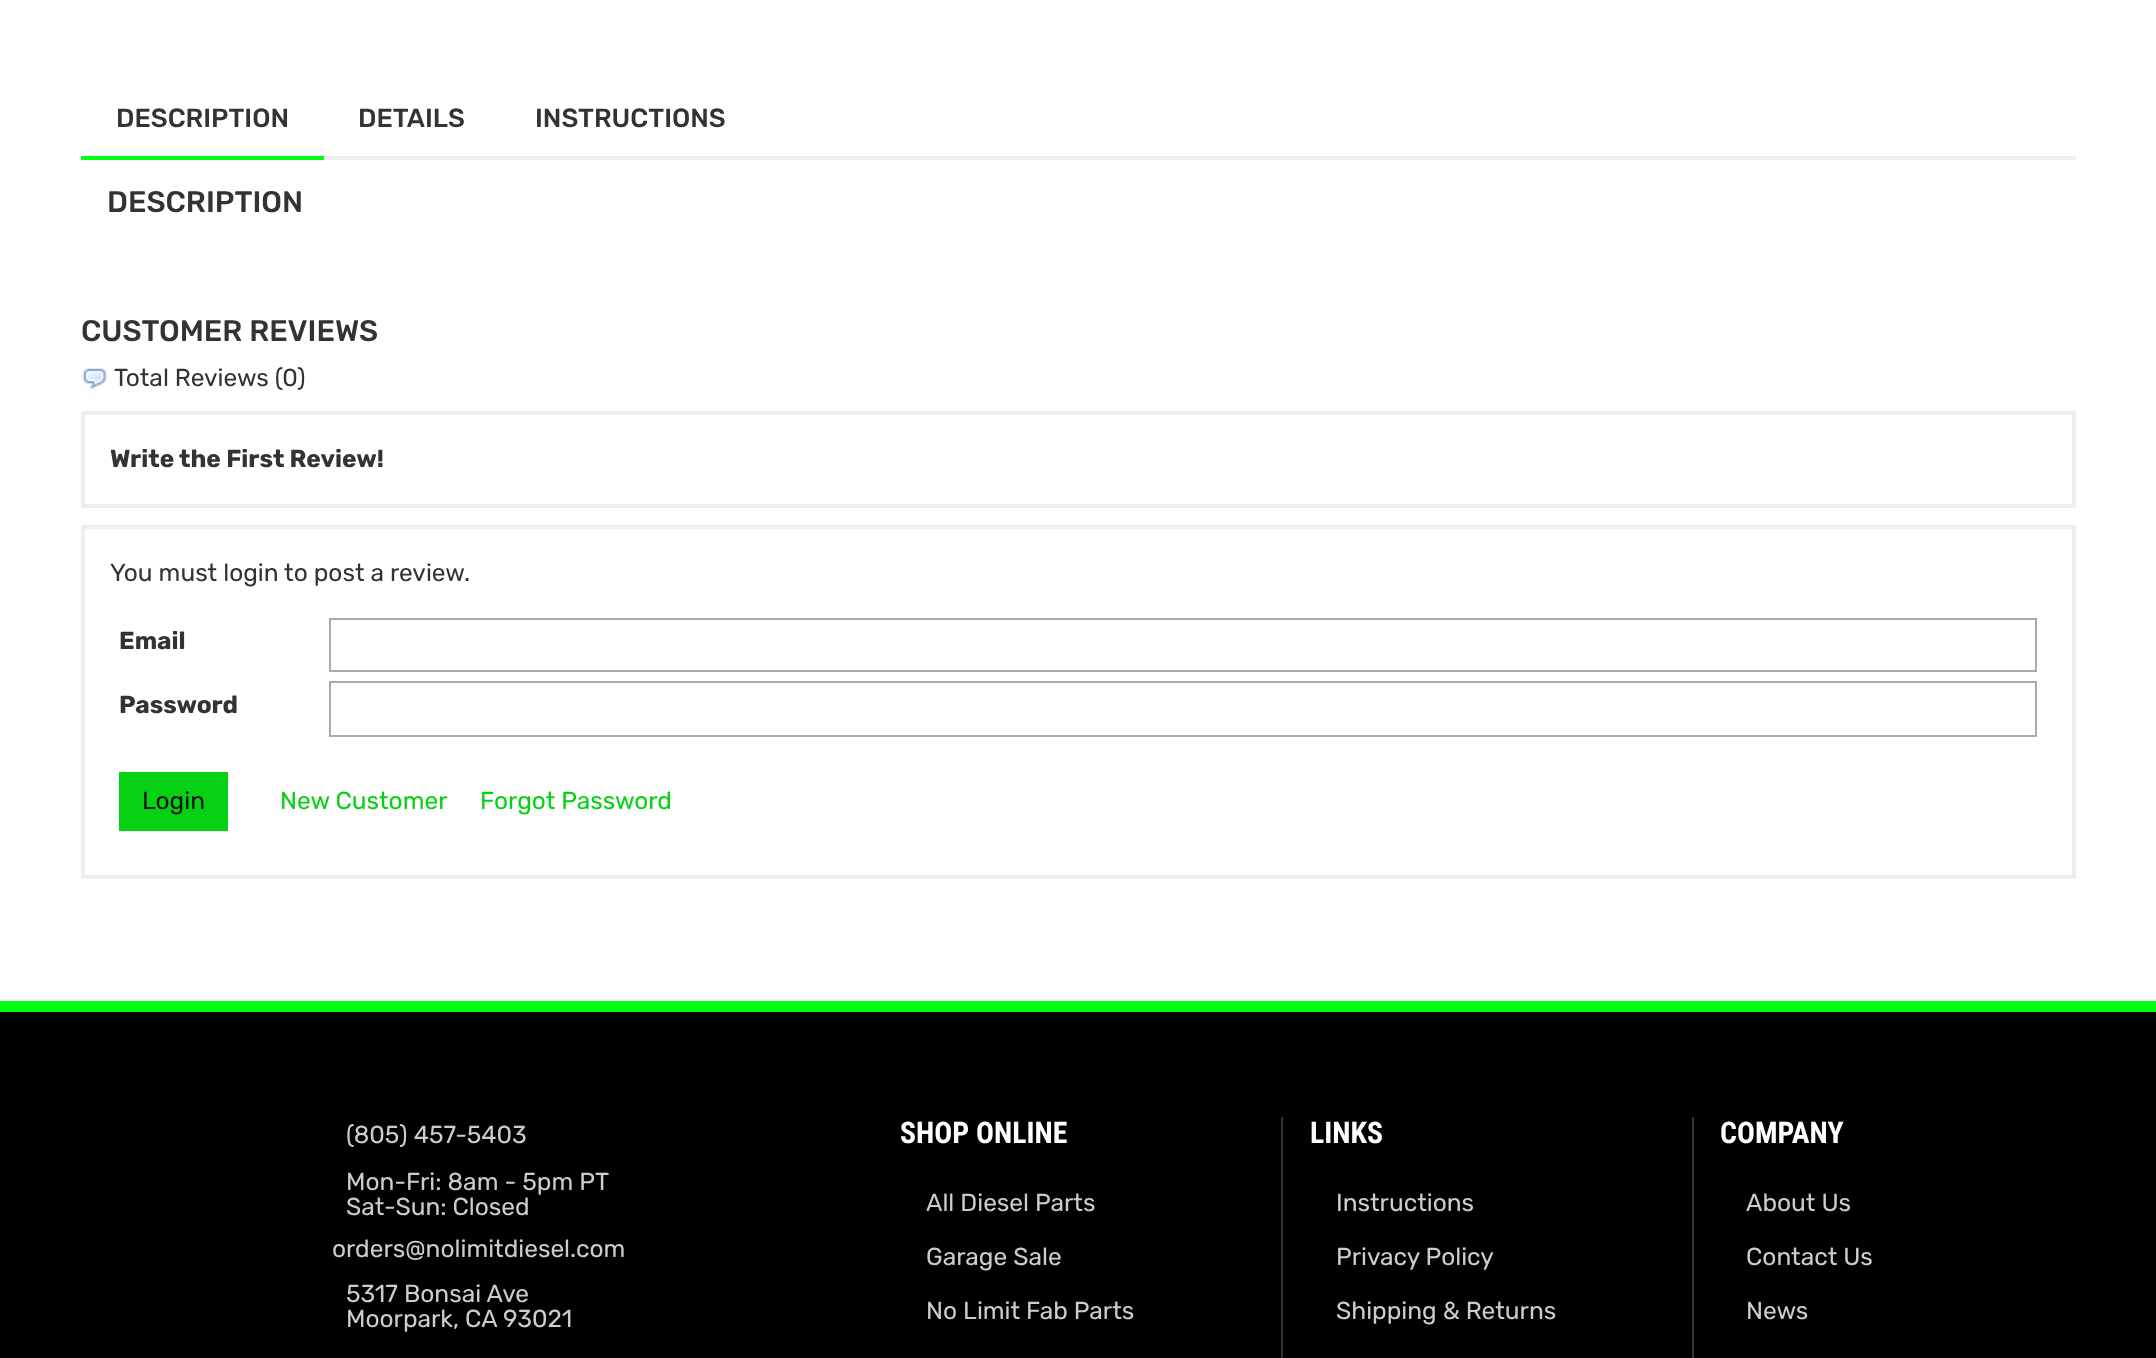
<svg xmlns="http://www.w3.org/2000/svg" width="2156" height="1358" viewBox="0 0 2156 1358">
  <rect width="100%" height="100%" fill="#fff"/>
  <path d="M324 156h1752v4H324z" fill="#eee"/>
  <path d="M81 156h243v4H81z" fill="#00ff10"/>
  <image x="82" y="368" width="26" height="21" href="img/1.png"/>
  <path d="M83 413h1991v93H83z" fill="none" stroke="#eee" stroke-width="4"/>
  <path d="M83 527h1991v350H83z" fill="none" stroke="#eee" stroke-width="4"/>
  <path d="M330 619h1706v52H330z" fill="none" stroke="#aaa" stroke-width="2"/>
  <path d="M330 682h1706v54H330z" fill="none" stroke="#aaa" stroke-width="2"/>
  <path d="M119 772h109v59H119z" fill="#07d113"/>
  <path d="M0 1012h2156v346H0z" fill="#000"/>
  <path d="M0 1001h2156v11H0z" fill="#00ff10"/>
  <path d="M1281 1117h2v241H1281z" fill="#333"/>
  <path d="M1692 1117h2v241H1692z" fill="#333"/>
  <g font-family="Rubik" font-size="26.25" font-weight="500" fill="#333">
    <text x="116" y="127">DESCRIPTION</text>
    <text x="358" y="127">DETAILS</text>
    <text x="535" y="127">INSTRUCTIONS</text>
  </g>
  <g font-family="Rubik" font-size="29.75" font-weight="500" fill="#333">
    <text x="107" y="212">DESCRIPTION</text>
    <text x="81" y="341">CUSTOMER REVIEWS</text>
  </g>
  <text x="114" y="386" font-family="Rubik" font-size="24.5" fill="#333">Total Reviews (0)</text>
  <text x="110" y="467" font-family="Rubik" font-size="24.5" font-weight="bold" fill="#333">Write the First Review!</text>
  <text x="110" y="581" font-family="Rubik" font-size="24.5" fill="#333">You must login to post a review.</text>
  <g font-family="Rubik" font-size="24.5" font-weight="bold" fill="#333">
    <text x="119" y="649">Email</text>
    <text x="119" y="713">Password</text>
  </g>
  <text x="142" y="809" font-family="Rubik" font-size="24.5" fill="#111">Login</text>
  <g font-family="Rubik" font-size="24.5" fill="#07d113">
    <text x="280" y="809">New Customer</text>
    <text x="480" y="809">Forgot Password</text>
  </g>
  <g font-family="Rubik" font-size="24.5" fill="#ccc">
    <text x="346" y="1143">(805) 457-5403</text>
    <text x="346" y="1190">Mon-Fri: 8am - 5pm PT</text>
    <text x="346" y="1215">Sat-Sun: Closed</text>
    <text x="332" y="1257">orders@nolimitdiesel.com</text>
    <text x="346" y="1302">5317 Bonsai Ave</text>
    <text x="346" y="1327">Moorpark, CA 93021</text>
  </g>
  <text x="900" y="1143" font-family="Roboto Condensed" font-size="29.75" font-weight="bold" fill="#fff">SHOP ONLINE</text>
  <g font-family="Rubik" font-size="24.5" fill="#ccc">
    <text x="926" y="1211">All Diesel Parts</text>
    <text x="926" y="1265">Garage Sale</text>
    <text x="926" y="1319">No Limit Fab Parts</text>
  </g>
  <text x="1310" y="1143" font-family="Roboto Condensed" font-size="29.75" font-weight="bold" fill="#fff">LINKS</text>
  <g font-family="Rubik" font-size="24.5" fill="#ccc">
    <text x="1336" y="1211">Instructions</text>
    <text x="1336" y="1265">Privacy Policy</text>
    <text x="1336" y="1319">Shipping &amp; Returns</text>
  </g>
  <text x="1720" y="1143" font-family="Roboto Condensed" font-size="29.75" font-weight="bold" fill="#fff">COMPANY</text>
  <g font-family="Rubik" font-size="24.5" fill="#ccc">
    <text x="1746" y="1211">About Us</text>
    <text x="1746" y="1265">Contact Us</text>
    <text x="1746" y="1319">News</text>
  </g>
</svg>
